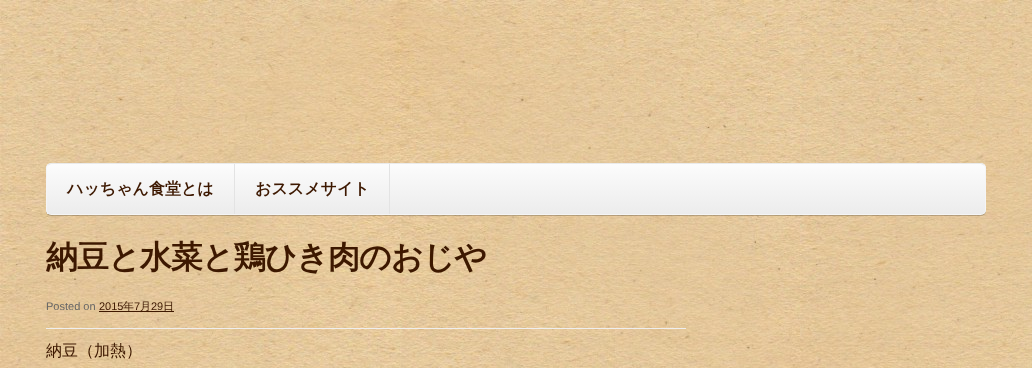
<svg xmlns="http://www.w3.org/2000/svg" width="1032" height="368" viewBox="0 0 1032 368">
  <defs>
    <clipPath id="clip1"><rect x="46" y="163" width="940" height="52" rx="5"/></clipPath>
    <linearGradient id="g1" gradientUnits="userSpaceOnUse" x1="516" y1="114" x2="516" y2="164"><stop offset="0" stop-color="#fcfcfc"/><stop offset="1" stop-color="#ececec"/></linearGradient>
    <linearGradient id="g2" gradientUnits="userSpaceOnUse" x1="516" y1="164" x2="516" y2="214"><stop offset="0" stop-color="#fcfcfc"/><stop offset="1" stop-color="#ececec"/></linearGradient>
  </defs>
  <rect width="100%" height="100%" fill="#fff"/>
  <image x="0" y="0" width="1032" height="368" href="img/1.png"/>
  <rect x="46" y="164" width="940" height="52" rx="5" fill="#00000033" filter="blur(0.5px)"/>
  <g clip-path="url(#clip1)">
    <path d="M46 163h940v1H46z" fill="url(#g1)"/>
    <path d="M46 164h940v50H46z" fill="url(#g2)"/>
  </g>
  <path d="M48 165L51 163.5H981L984 165" fill="none" stroke="#eaeaea"/>
  <path d="M984 165C985 165.5 985.5 167 985.5 168V210C985.5 211 985 212.5 984 213C983.5 214 982 214.5 981 214.5H51C50 214.5 48.5 214 48 213C47 212.5 46.5 211 46.5 210V168C46.5 167 47 165.5 48 165" fill="none" stroke="#f5f5f5"/>
  <path d="M234 164h1v50H234z" fill="#e3e3e3"/>
  <path d="M47 213h2v1H47z" fill="#eee"/>
  <path d="M389 164h1v50H389z" fill="#e3e3e3"/>
  <path d="M46 328h640v1H46z" fill="#eee"/>
  <path d="M99 311h75v1H99z" fill="#3f1900"/>
  <g font-family="WenQuanYi Zen Hei" font-size="16" font-weight="bold" fill="#3d1800">
    <text x="67" y="194">ハッちゃん食堂とは</text>
    <text x="255" y="194">おススメサイト</text>
  </g>
  <text x="46" y="268" font-family="WenQuanYi Zen Hei" font-size="32" font-weight="bold" letter-spacing="-1" fill="#3d1800">納豆と水菜と鶏ひき肉のおじや</text>
  <text x="46" y="310" font-family="Liberation Sans" font-size="11" fill="#666">Posted on</text>
  <text x="99" y="310" font-family="Liberation Sans" font-size="11" fill="#3d1800">2015</text>
  <text x="123" y="310" font-family="WenQuanYi Zen Hei" font-size="11" font-weight="500" fill="#3d1800">年</text>
  <text x="134" y="310" font-family="Liberation Sans" font-size="11" fill="#3d1800">7</text>
  <text x="140" y="310" font-family="WenQuanYi Zen Hei" font-size="11" font-weight="500" fill="#3d1800">月</text>
  <text x="151" y="310" font-family="Liberation Sans" font-size="11" fill="#3d1800">29</text>
  <text x="163" y="310" font-family="WenQuanYi Zen Hei" font-size="11" font-weight="500" fill="#3d1800">日</text>
  <text x="46" y="356" font-family="WenQuanYi Zen Hei" font-size="16" font-weight="500" fill="#3d1800">納豆（加熱）</text>
</svg>
